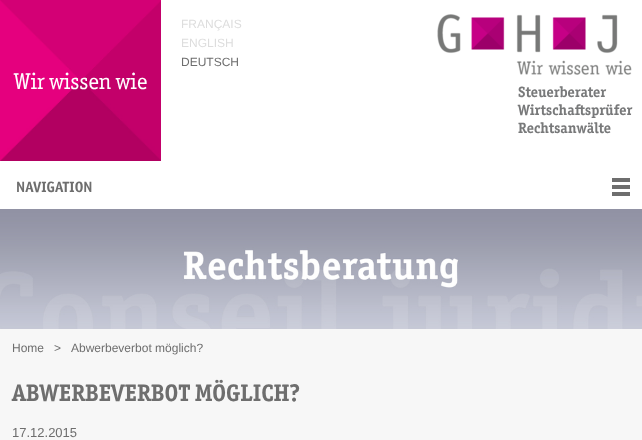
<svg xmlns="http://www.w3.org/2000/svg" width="642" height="440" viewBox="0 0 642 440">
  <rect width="100%" height="100%" fill="#fff"/>
  <image x="0" y="0" width="161" height="161" href="img/1.png"/>
  <image x="437" y="14" width="195" height="61" href="img/2.png"/>
  <path d="M612 178h18v4H612z" fill="#6e6e6e"/>
  <path d="M612 192h18v4H612z" fill="#6e6e6e"/>
  <path d="M612 185h18v4H612z" fill="#6e6e6e"/>
  <image x="0" y="209" width="642" height="120" href="img/3.png"/>
  <path d="M0 329h642v111H0z" fill="#f7f7f7"/>
  <text x="14" y="89" font-family="'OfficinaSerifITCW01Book'" font-size="23" fill="#fff">Wir wissen wie</text>
  <g font-family="Liberation Sans" font-size="12" fill="#ddd">
    <text x="181" y="28">FRANÇAIS</text>
    <text x="181" y="47">ENGLISH</text>
  </g>
  <text x="181" y="66" font-family="Liberation Sans" font-size="12" fill="#6e6e6e">DEUTSCH</text>
  <g font-family="'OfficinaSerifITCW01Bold'" font-size="15" font-weight="bold" fill="#78797a">
    <text x="518" y="97">Steuerberater</text>
    <text x="518" y="115">Wirtschaftsprüfer</text>
    <text x="518" y="133">Rechtsanwälte</text>
  </g>
  <text x="16" y="192" font-family="'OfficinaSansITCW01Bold'" font-size="15" font-weight="bold" fill="#6e6e6e">NAVIGATION</text>
  <g font-family="Liberation Sans" font-size="12" fill="#6e6e6e">
    <text x="12" y="352">Home</text>
    <text x="54" y="352">&gt;</text>
    <text x="71" y="352">Abwerbeverbot möglich?</text>
  </g>
  <text x="12" y="401" font-family="'OfficinaSerifITCW01Bold'" font-size="24" font-weight="bold" fill="#6e6e6e">ABWERBEVERBOT MÖGLICH?</text>
  <text x="12" y="437" font-family="Liberation Sans" font-size="13" fill="#6e6e6e">17.12.2015</text>
</svg>
